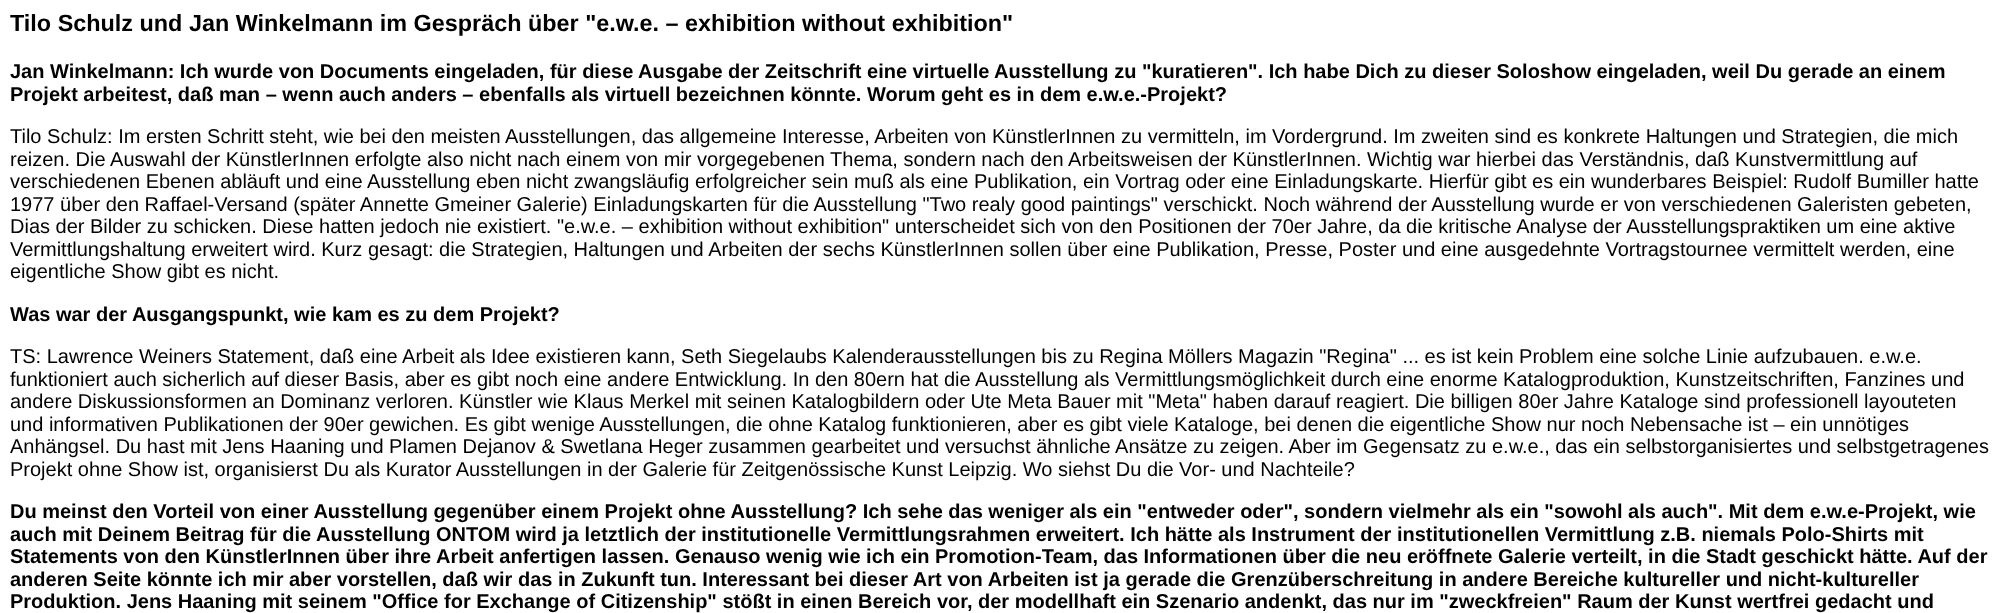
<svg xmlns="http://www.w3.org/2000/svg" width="2005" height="613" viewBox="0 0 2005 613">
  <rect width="100%" height="100%" fill="#fff"/>
  <text x="10" y="31" font-family="Liberation Sans" font-size="23.4" font-weight="bold" fill="#000">Tilo Schulz und Jan Winkelmann im Gespräch über "e.w.e. – exhibition without exhibition"</text>
  <g font-family="Liberation Sans" font-size="20" font-weight="bold" fill="#000">
    <text x="10" y="78">Jan Winkelmann: Ich wurde von Documents eingeladen, für diese Ausgabe der Zeitschrift eine virtuelle Ausstellung zu "kuratieren". Ich habe Dich zu dieser Soloshow eingeladen, weil Du gerade an einem</text>
    <text x="10" y="101">Projekt arbeitest, daß man – wenn auch anders – ebenfalls als virtuell bezeichnen könnte. Worum geht es in dem e.w.e.-Projekt?</text>
  </g>
  <g font-family="Liberation Sans" font-size="20" fill="#000">
    <text x="10" y="143">Tilo Schulz: Im ersten Schritt steht, wie bei den meisten Ausstellungen, das allgemeine Interesse, Arbeiten von KünstlerInnen zu vermitteln, im Vordergrund. Im zweiten sind es konkrete Haltungen und Strategien, die mich</text>
    <text x="10" y="166">reizen. Die Auswahl der KünstlerInnen erfolgte also nicht nach einem von mir vorgegebenen Thema, sondern nach den Arbeitsweisen der KünstlerInnen. Wichtig war hierbei das Verständnis, daß Kunstvermittlung auf</text>
    <text x="10" y="188">verschiedenen Ebenen abläuft und eine Ausstellung eben nicht zwangsläufig erfolgreicher sein muß als eine Publikation, ein Vortrag oder eine Einladungskarte. Hierfür gibt es ein wunderbares Beispiel: Rudolf Bumiller hatte</text>
    <text x="10" y="211">1977 über den Raffael-Versand (später Annette Gmeiner Galerie) Einladungskarten für die Ausstellung "Two realy good paintings" verschickt. Noch während der Ausstellung wurde er von verschiedenen Galeristen gebeten,</text>
    <text x="10" y="233">Dias der Bilder zu schicken. Diese hatten jedoch nie existiert. "e.w.e. – exhibition without exhibition" unterscheidet sich von den Positionen der 70er Jahre, da die kritische Analyse der Ausstellungspraktiken um eine aktive</text>
    <text x="10" y="256">Vermittlungshaltung erweitert wird. Kurz gesagt: die Strategien, Haltungen und Arbeiten der sechs KünstlerInnen sollen über eine Publikation, Presse, Poster und eine ausgedehnte Vortragstournee vermittelt werden, eine</text>
    <text x="10" y="278">eigentliche Show gibt es nicht.</text>
  </g>
  <text x="10" y="321" font-family="Liberation Sans" font-size="20" font-weight="bold" fill="#000">Was war der Ausgangspunkt, wie kam es zu dem Projekt?</text>
  <g font-family="Liberation Sans" font-size="20" fill="#000">
    <text x="10" y="363">TS: Lawrence Weiners Statement, daß eine Arbeit als Idee existieren kann, Seth Siegelaubs Kalenderausstellungen bis zu Regina Möllers Magazin "Regina" ... es ist kein Problem eine solche Linie aufzubauen. e.w.e.</text>
    <text x="10" y="386">funktioniert auch sicherlich auf dieser Basis, aber es gibt noch eine andere Entwicklung. In den 80ern hat die Ausstellung als Vermittlungsmöglichkeit durch eine enorme Katalogproduktion, Kunstzeitschriften, Fanzines und</text>
    <text x="10" y="408">andere Diskussionsformen an Dominanz verloren. Künstler wie Klaus Merkel mit seinen Katalogbildern oder Ute Meta Bauer mit "Meta" haben darauf reagiert. Die billigen 80er Jahre Kataloge sind professionell layouteten</text>
    <text x="10" y="431">und informativen Publikationen der 90er gewichen. Es gibt wenige Ausstellungen, die ohne Katalog funktionieren, aber es gibt viele Kataloge, bei denen die eigentliche Show nur noch Nebensache ist – ein unnötiges</text>
    <text x="10" y="453">Anhängsel. Du hast mit Jens Haaning und Plamen Dejanov &amp; Swetlana Heger zusammen gearbeitet und versuchst ähnliche Ansätze zu zeigen. Aber im Gegensatz zu e.w.e., das ein selbstorganisiertes und selbstgetragenes</text>
    <text x="10" y="476">Projekt ohne Show ist, organisierst Du als Kurator Ausstellungen in der Galerie für Zeitgenössische Kunst Leipzig. Wo siehst Du die Vor- und Nachteile?</text>
  </g>
  <g font-family="Liberation Sans" font-size="20" font-weight="bold" fill="#000">
    <text x="10" y="518">Du meinst den Vorteil von einer Ausstellung gegenüber einem Projekt ohne Ausstellung? Ich sehe das weniger als ein "entweder oder", sondern vielmehr als ein "sowohl als auch". Mit dem e.w.e-Projekt, wie</text>
    <text x="10" y="541">auch mit Deinem Beitrag für die Ausstellung ONTOM wird ja letztlich der institutionelle Vermittlungsrahmen erweitert. Ich hätte als Instrument der institutionellen Vermittlung z.B. niemals Polo-Shirts mit</text>
    <text x="10" y="563">Statements von den KünstlerInnen über ihre Arbeit anfertigen lassen. Genauso wenig wie ich ein Promotion-Team, das Informationen über die neu eröffnete Galerie verteilt, in die Stadt geschickt hätte. Auf der</text>
    <text x="10" y="586">anderen Seite könnte ich mir aber vorstellen, daß wir das in Zukunft tun. Interessant bei dieser Art von Arbeiten ist ja gerade die Grenzüberschreitung in andere Bereiche kultureller und nicht-kultureller</text>
    <text x="10" y="608">Produktion. Jens Haaning mit seinem "Office for Exchange of Citizenship" stößt in einen Bereich vor, der modellhaft ein Szenario andenkt, das nur im "zweckfreien" Raum der Kunst wertfrei gedacht und</text>
  </g>
</svg>
